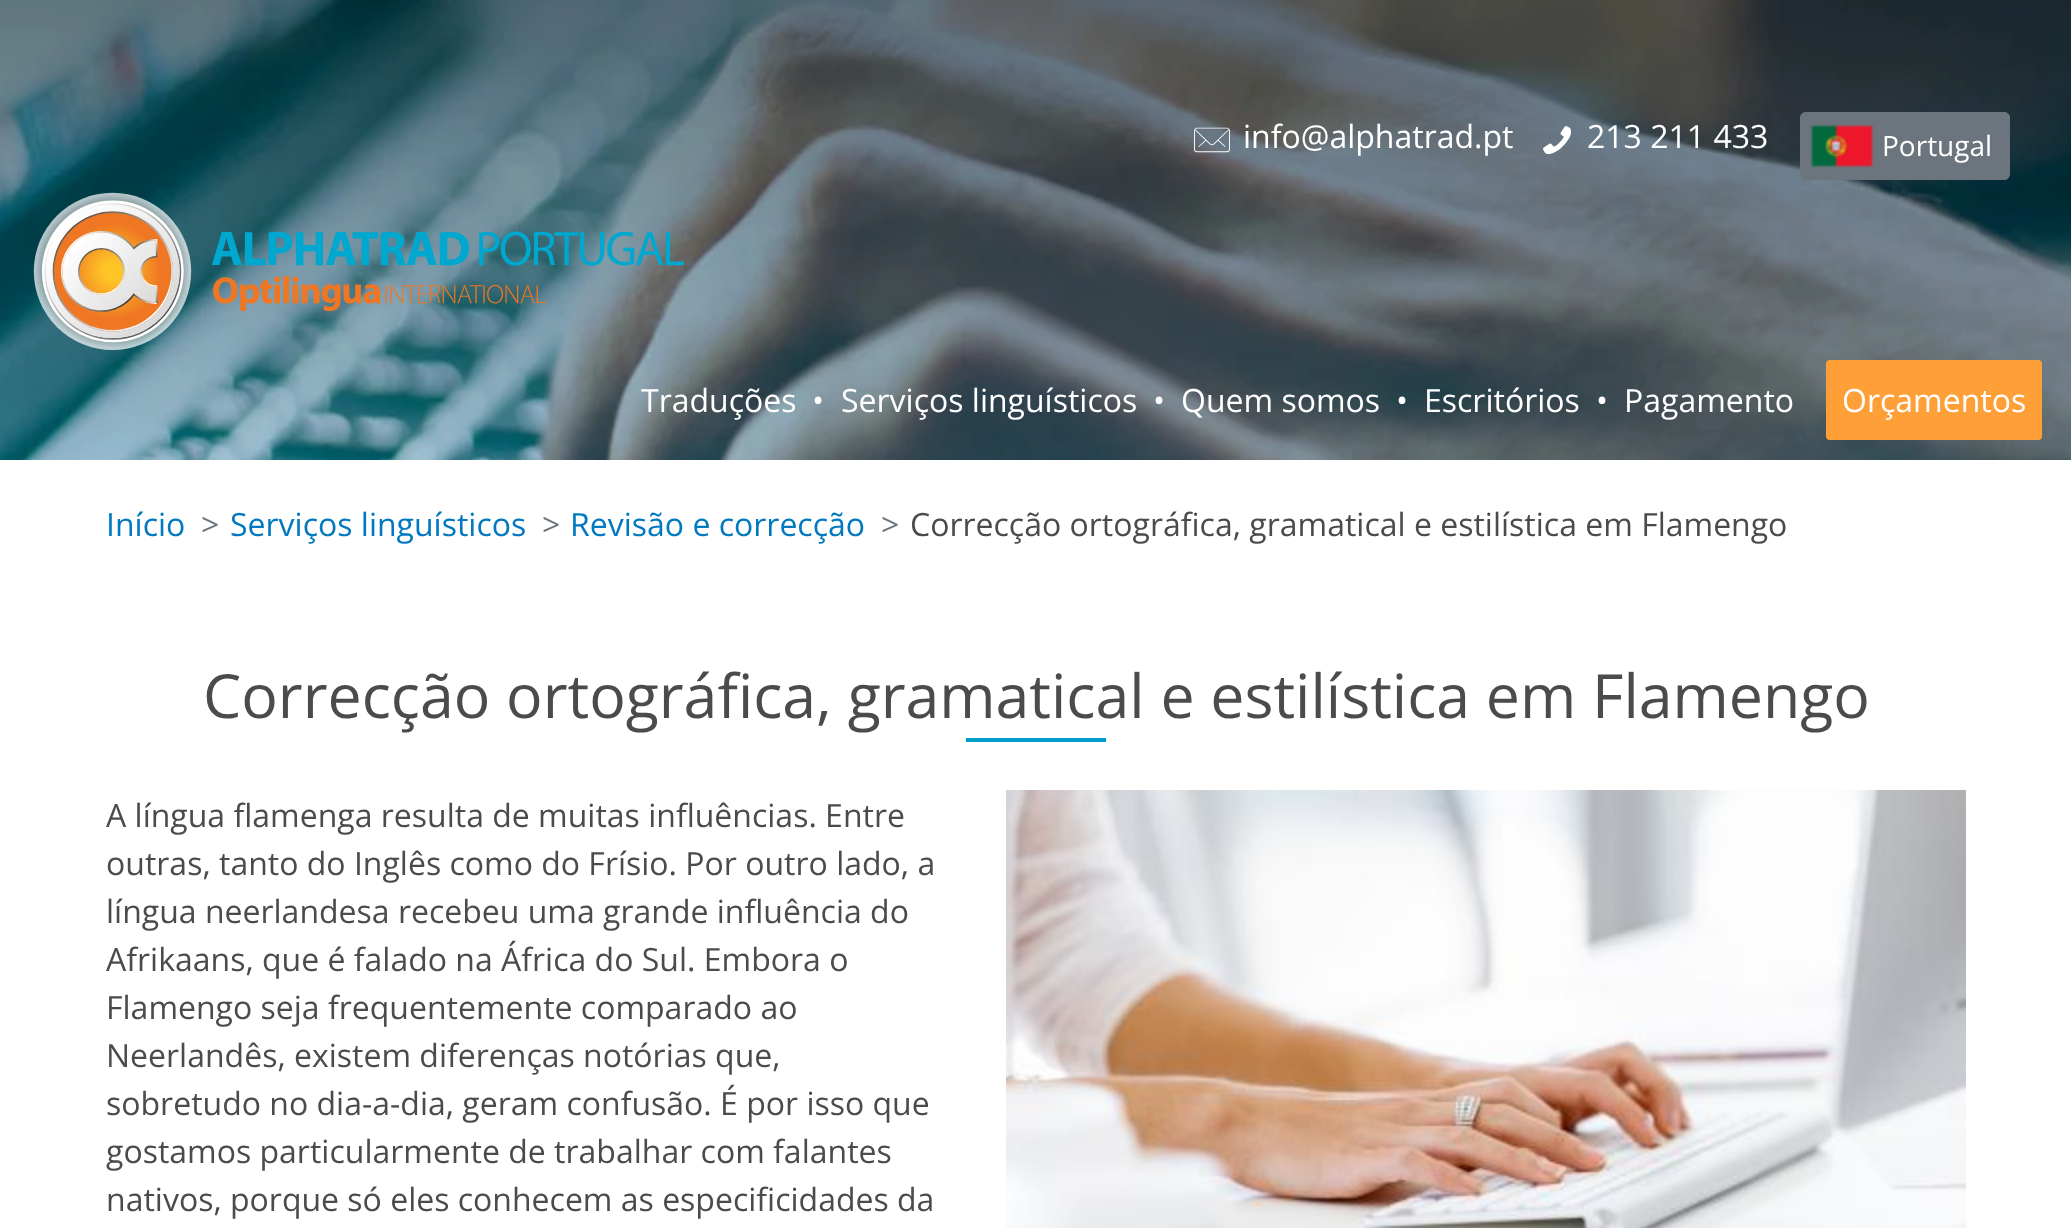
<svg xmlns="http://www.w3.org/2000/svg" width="2071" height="1228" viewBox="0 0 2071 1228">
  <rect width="100%" height="100%" fill="#fff"/>
  <image x="0" y="0" width="2071" height="460" href="img/1.png"/>
  <image x="1194" y="127" width="36" height="26" href="img/2.png"/>
  <image x="1543" y="126" width="28" height="28" href="img/3.png"/>
  <rect x="1800" y="112" width="210" height="68" rx="6" fill="#6c757d"/>
  <image x="1810" y="124" width="64" height="44" href="img/4.png"/>
  <rect x="1801" y="113" width="208" height="66" rx="5" fill="none" stroke="#6c757d" stroke-width="2"/>
  <image x="33" y="192" width="652" height="158" href="img/5.png"/>
  <rect x="1826" y="360" width="216" height="80" rx="4" fill="#ff9f38"/>
  <path d="M966 738h140v4H966z" fill="#009dcb"/>
  <image x="1006" y="790" width="960" height="438" href="img/6.png"/>
  <g font-family="Open Sans" font-size="32" fill="#fff">
    <text x="1243" y="148">info@alphatrad.pt</text>
    <text x="1587" y="148">213 211 433</text>
  </g>
  <text x="1882" y="156" font-family="Open Sans" font-size="28" fill="#fff">Portugal</text>
  <g font-family="Open Sans" font-size="32" fill="#fff">
    <text x="641" y="412">Traduções</text>
    <text x="812" y="412">•</text>
    <text x="841" y="412">Serviços linguísticos</text>
    <text x="1153" y="412">•</text>
    <text x="1181" y="412">Quem somos</text>
    <text x="1396" y="412">•</text>
    <text x="1424" y="412">Escritórios</text>
    <text x="1596" y="412">•</text>
    <text x="1624" y="412">Pagamento</text>
    <text x="1842" y="412">Orçamentos</text>
  </g>
  <text x="106" y="536" font-family="Open Sans" font-size="32" fill="#0079c0">Início</text>
  <text x="201" y="536" font-family="Open Sans" font-size="32" fill="#6c757d">&gt;</text>
  <text x="230" y="536" font-family="Open Sans" font-size="32" fill="#0079c0">Serviços linguísticos</text>
  <text x="542" y="536" font-family="Open Sans" font-size="32" fill="#6c757d">&gt;</text>
  <text x="570" y="536" font-family="Open Sans" font-size="32" fill="#0079c0">Revisão e correcção</text>
  <text x="881" y="536" font-family="Open Sans" font-size="32" fill="#6c757d">&gt;</text>
  <text x="910" y="536" font-family="Open Sans" font-size="32" fill="#4b4b4b">Correcção ortográfica, gramatical e estilística em Flamengo</text>
  <text x="203" y="718" font-family="Open Sans" font-size="60.8" fill="#4b4b4b">Correcção ortográfica, gramatical e estilística em Flamengo</text>
  <g font-family="Open Sans" font-size="32" fill="#4b4b4b">
    <text x="106" y="827">A língua flamenga resulta de muitas influências. Entre</text>
    <text x="106" y="875">outras, tanto do Inglês como do Frísio. Por outro lado, a</text>
    <text x="106" y="923">língua neerlandesa recebeu uma grande influência do</text>
    <text x="106" y="971">Afrikaans, que é falado na África do Sul. Embora o</text>
    <text x="106" y="1019">Flamengo seja frequentemente comparado ao</text>
    <text x="106" y="1067">Neerlandês, existem diferenças notórias que,</text>
    <text x="106" y="1115">sobretudo no dia-a-dia, geram confusão. É por isso que</text>
    <text x="106" y="1163">gostamos particularmente de trabalhar com falantes</text>
    <text x="106" y="1211">nativos, porque só eles conhecem as especificidades da</text>
  </g>
</svg>
